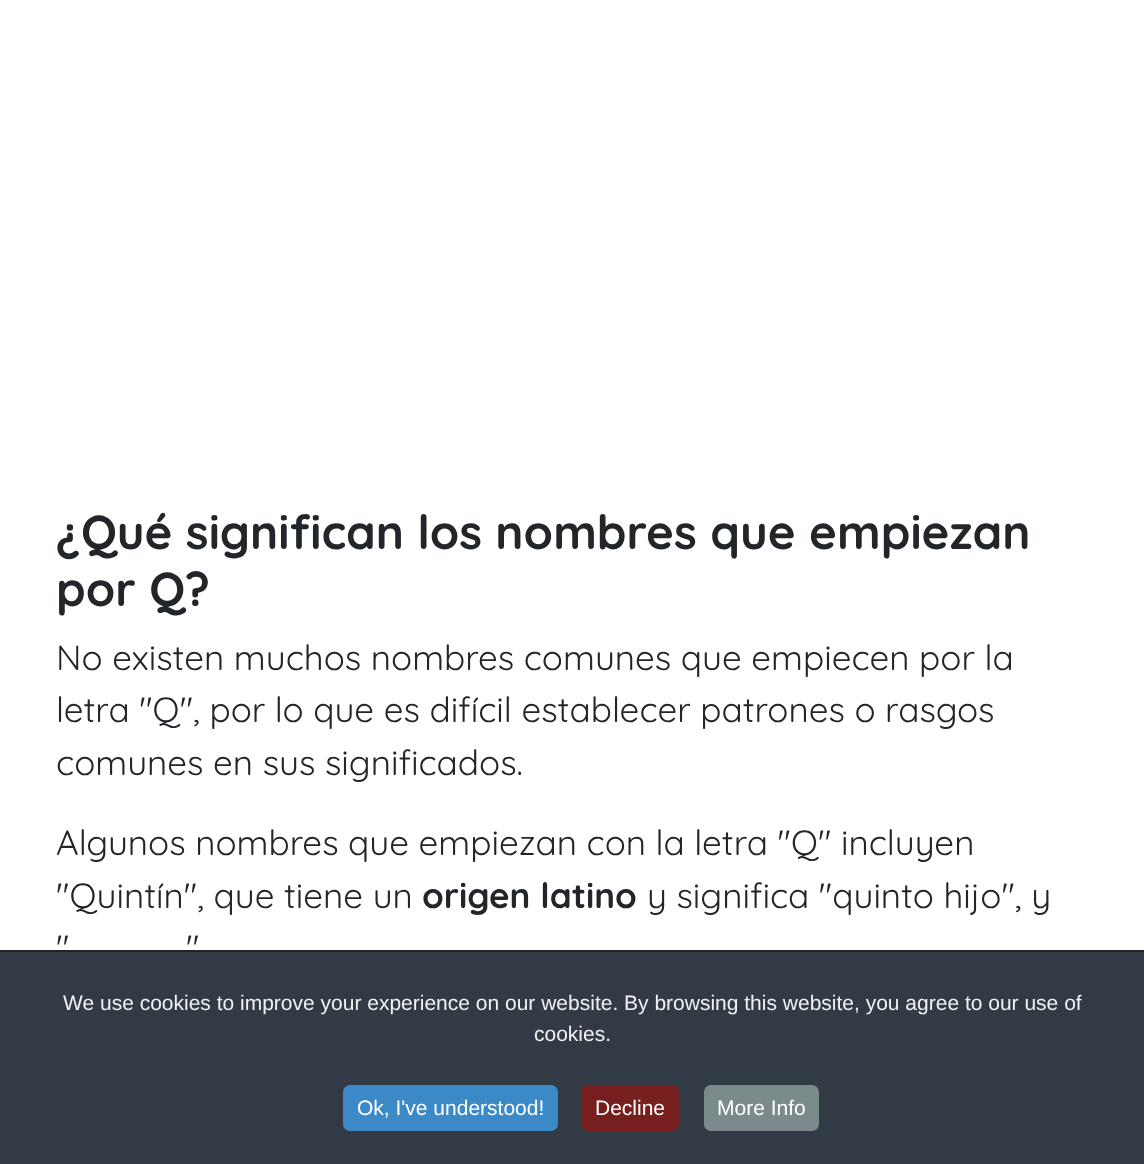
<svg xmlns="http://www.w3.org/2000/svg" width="1144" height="1164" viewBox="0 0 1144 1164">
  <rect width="100%" height="100%" fill="#fff"/>
  <path d="M0 952h1144v212H0z" fill="#323a45"/>
  <path d="M0 950h1144v2H0z" fill="#202226"/>
  <rect x="343" y="1085" width="215" height="46" rx="7" fill="#3b89c7"/>
  <rect x="581" y="1085" width="98" height="46" rx="7" fill="#771f1f"/>
  <rect x="704" y="1085" width="115" height="46" rx="7" fill="#7b8a8b"/>
  <g font-family="Quicksand" font-size="47.4" font-weight="bold" fill="#22262a">
    <text x="56" y="549">¿Qué significan los nombres que empiezan</text>
    <text x="56" y="606">por Q?</text>
  </g>
  <g font-family="Quicksand" font-size="35" fill="#22262a">
    <text x="56" y="670">No existen muchos nombres comunes que empiecen por la</text>
    <text x="56" y="722">letra "Q", por lo que es difícil establecer patrones o rasgos</text>
    <text x="56" y="775">comunes en sus significados.</text>
    <text x="56" y="855">Algunos nombres que empiezan con la letra "Q" incluyen</text>
    <text x="56" y="908">"Quintín", que tiene un</text>
  </g>
  <text x="422" y="908" font-family="Quicksand" font-size="35" font-weight="bold" fill="#22262a">origen latino</text>
  <g font-family="Quicksand" font-size="35" fill="#22262a">
    <text x="647" y="908">y significa "quinto hijo", y</text>
    <text x="56" y="960">"</text>
    <text x="186" y="960">"</text>
  </g>
  <g font-family="Liberation Sans" font-size="21" fill="#f1f1f3">
    <text x="63" y="1010">We use cookies to improve your experience on our website. By browsing this website, you agree to our use of</text>
    <text x="534" y="1041">cookies.</text>
  </g>
  <g font-family="Liberation Sans" font-size="21" fill="#fff">
    <text x="357" y="1115">Ok, I've understood!</text>
    <text x="595" y="1115">Decline</text>
    <text x="717" y="1115">More Info</text>
  </g>
</svg>
